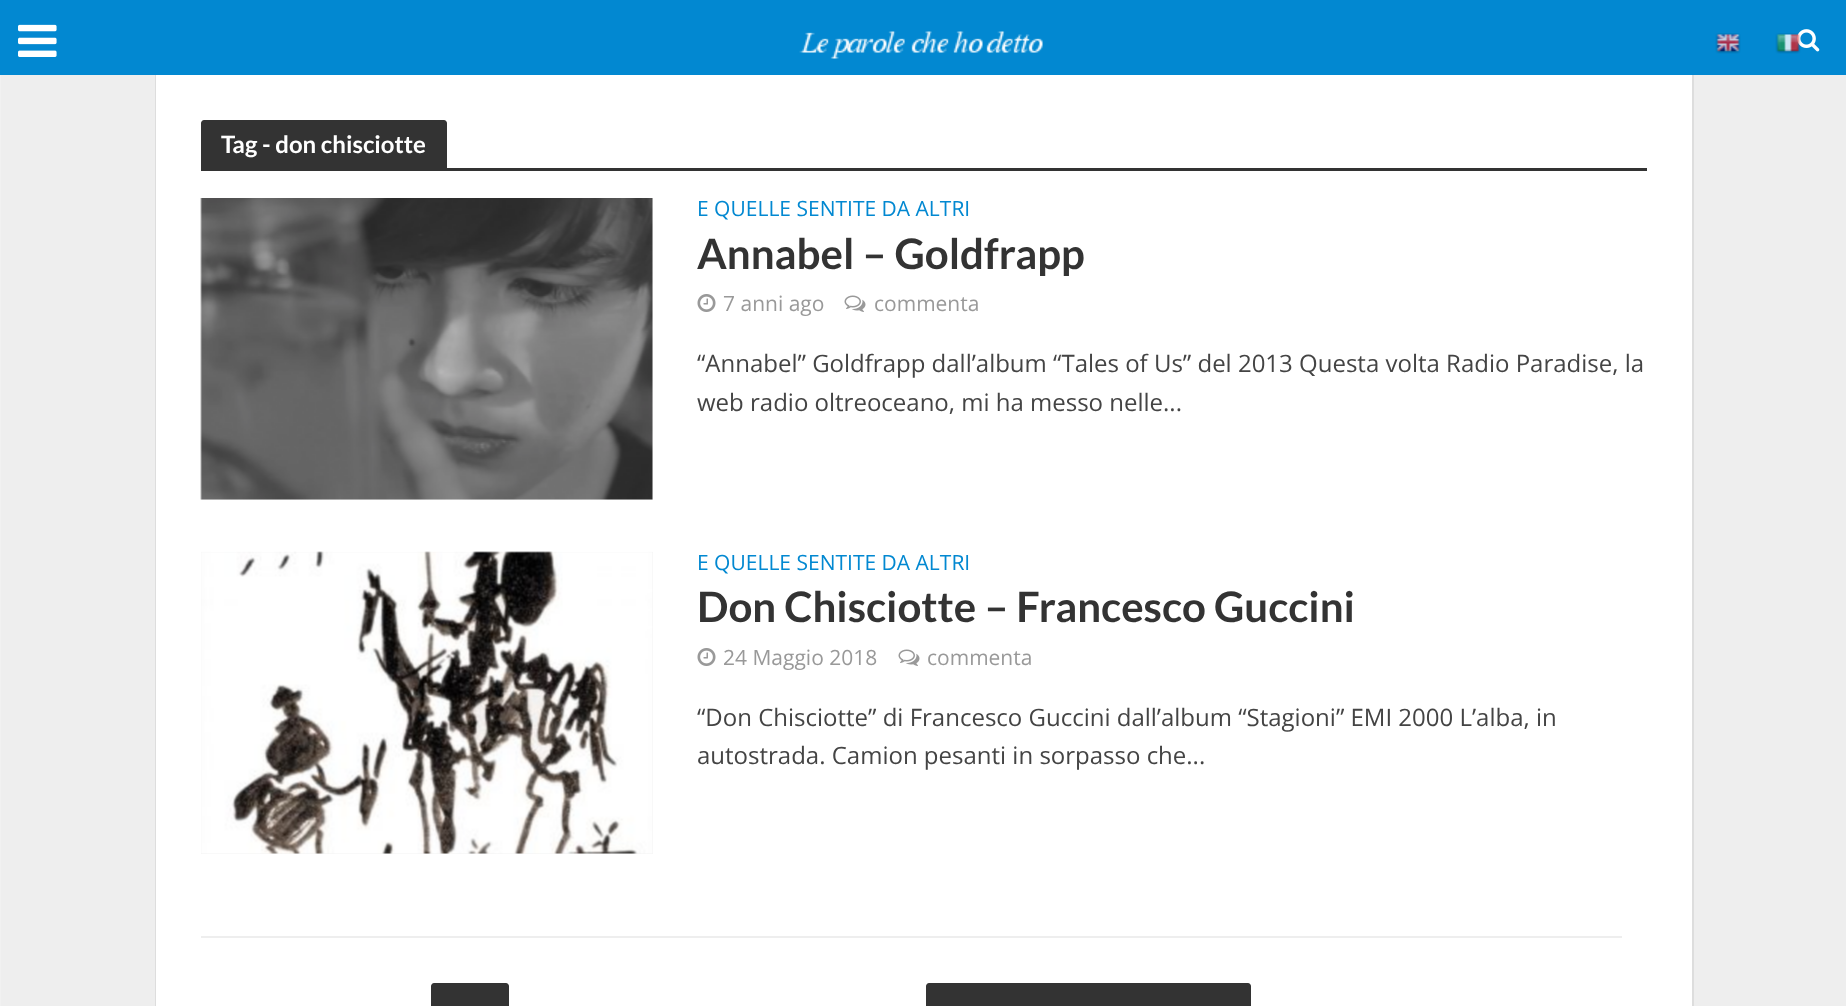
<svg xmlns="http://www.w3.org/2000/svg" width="1846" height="1006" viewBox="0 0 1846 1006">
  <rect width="100%" height="100%" fill="#eee"/>
  <path d="M156 75h1537v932H156z" fill="none" stroke="#ddd" stroke-width="2"/>
  <path d="M0 0h1846v75H0z" fill="#0288d1"/>
  <image x="18" y="24" width="39" height="33" href="img/1.png"/>
  <image x="799" y="31" width="244" height="28" href="img/2.png"/>
  <image x="1797" y="29" width="23" height="23" href="img/3.png"/>
  <image x="1715" y="33" width="26" height="21" href="img/4.png"/>
  <image x="1775" y="33" width="26" height="21" href="img/5.png"/>
  <path d="M0 75h1v931H0z" fill="#f1f1f1"/>
  <path d="M156 75h1536v931H156z" fill="#fff"/>
  <path d="M204 120H444C445.5 120 447 121.5 447 123V168H201V123C201 121.5 202.5 120 204 120Z" fill="#333"/>
  <path d="M201 168h1446v3H201z" fill="#333"/>
  <path d="M201 198h452v302H201z" fill="#f3f3f3"/>
  <image x="200" y="198" width="453" height="302" href="img/6.png"/>
  <image x="697" y="294" width="19" height="18" href="img/7.png"/>
  <image x="844" y="295" width="22" height="17" href="img/8.png"/>
  <path d="M201 552h452v302H201z" fill="#f3f3f3"/>
  <image x="201" y="551" width="452" height="303" href="img/9.png"/>
  <image x="697" y="648" width="19" height="18" href="img/7.png"/>
  <image x="898" y="649" width="22" height="17" href="img/8.png"/>
  <path d="M201 936h1421v2H201z" fill="#eee"/>
  <path d="M434 983H506C507.5 983 509 984.5 509 986V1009H431V986C431 984.5 432.5 983 434 983Z" fill="#333"/>
  <path d="M929 983H1248C1249.5 983 1251 984.5 1251 986V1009H926V986C926 984.5 927.5 983 929 983Z" fill="#333"/>
  <text x="221" y="153" font-family="Lato" font-size="24" font-weight="bold" fill="#fff">Tag - don chisciotte</text>
  <text x="697" y="216" font-family="Open Sans" font-size="21" fill="#0288d1">E QUELLE SENTITE DA ALTRI</text>
  <text x="697" y="269" font-family="Lato" font-size="42" font-weight="bold" fill="#333">Annabel – Goldfrapp</text>
  <g font-family="Open Sans" font-size="21" fill="#999">
    <text x="723" y="311">7 anni ago</text>
    <text x="874" y="311">commenta</text>
  </g>
  <g font-family="Open Sans" font-size="24" fill="#444">
    <text x="697" y="372">“Annabel” Goldfrapp dall’album “Tales of Us” del 2013 Questa volta Radio Paradise, la</text>
    <text x="697" y="411">web radio oltreoceano, mi ha messo nelle...</text>
  </g>
  <text x="697" y="570" font-family="Open Sans" font-size="21" fill="#0288d1">E QUELLE SENTITE DA ALTRI</text>
  <text x="697" y="622" font-family="Lato" font-size="42" font-weight="bold" fill="#333">Don Chisciotte – Francesco Guccini</text>
  <g font-family="Open Sans" font-size="21" fill="#999">
    <text x="723" y="665">24 Maggio 2018</text>
    <text x="927" y="665">commenta</text>
  </g>
  <g font-family="Open Sans" font-size="24" fill="#444">
    <text x="697" y="726">“Don Chisciotte” di Francesco Guccini dall’album “Stagioni” EMI 2000 L’alba, in</text>
    <text x="697" y="764">autostrada. Camion pesanti in sorpasso che...</text>
  </g>
</svg>
